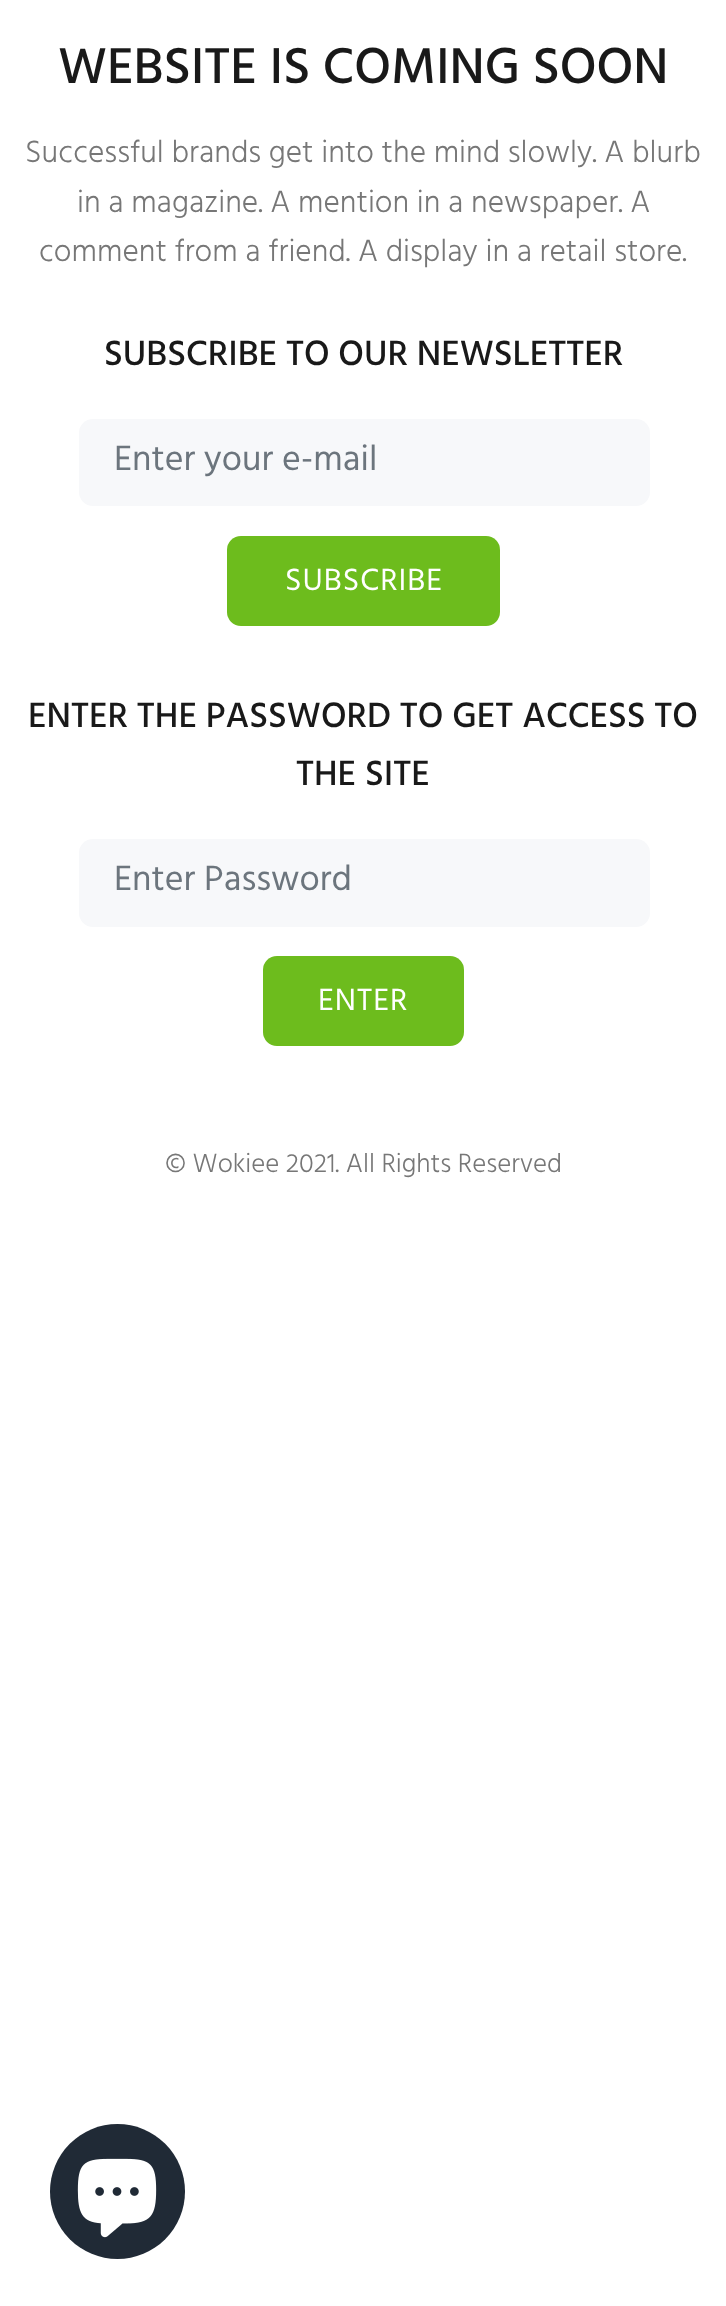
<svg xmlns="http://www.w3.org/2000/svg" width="726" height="2306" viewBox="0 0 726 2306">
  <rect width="100%" height="100%" fill="#fff"/>
  <rect x="79" y="419" width="571" height="87" rx="14" fill="#f7f8fa"/>
  <rect x="227" y="536" width="273" height="90" rx="14" fill="#6dbc1d"/>
  <rect x="79" y="839" width="571" height="88" rx="14" fill="#f7f8fa"/>
  <rect x="263" y="956" width="201" height="90" rx="14" fill="#6dbc1d"/>
  <circle cx="117.5" cy="2191.5" r="67.5" fill="#202a36"/>
  <image x="77" y="2158" width="80" height="80" href="img/1.png"/>
  <text x="58" y="83" font-family="Hind" font-size="51.75" font-weight="500" fill="#191919">WEBSITE IS COMING SOON</text>
  <g font-family="Hind" font-size="31.5" font-weight="300" fill="#777">
    <text x="25" y="162">Successful brands get into the mind slowly. A blurb</text>
    <text x="77" y="212">in a magazine. A mention in a newspaper. A</text>
    <text x="39" y="261">comment from a friend. A display in a retail store.</text>
  </g>
  <text x="104" y="365" font-family="Hind" font-size="36" font-weight="500" fill="#191919">SUBSCRIBE TO OUR NEWSLETTER</text>
  <text x="114" y="470" font-family="Hind" font-size="36" fill="#6c757d">Enter your e-mail</text>
  <text x="285" y="590" font-family="Hind" font-size="31.5" letter-spacing="1" fill="#fff">SUBSCRIBE</text>
  <g font-family="Hind" font-size="36" font-weight="500" fill="#191919">
    <text x="28" y="727">ENTER THE PASSWORD TO GET ACCESS TO</text>
    <text x="296" y="785">THE SITE</text>
  </g>
  <text x="114" y="890" font-family="Hind" font-size="36" fill="#6c757d">Enter Password</text>
  <text x="318" y="1010" font-family="Hind" font-size="31.5" letter-spacing="1" fill="#fff">ENTER</text>
  <text x="165" y="1172" font-family="Hind" font-size="27" font-weight="300" fill="#777">© Wokiee 2021. All Rights Reserved</text>
</svg>
